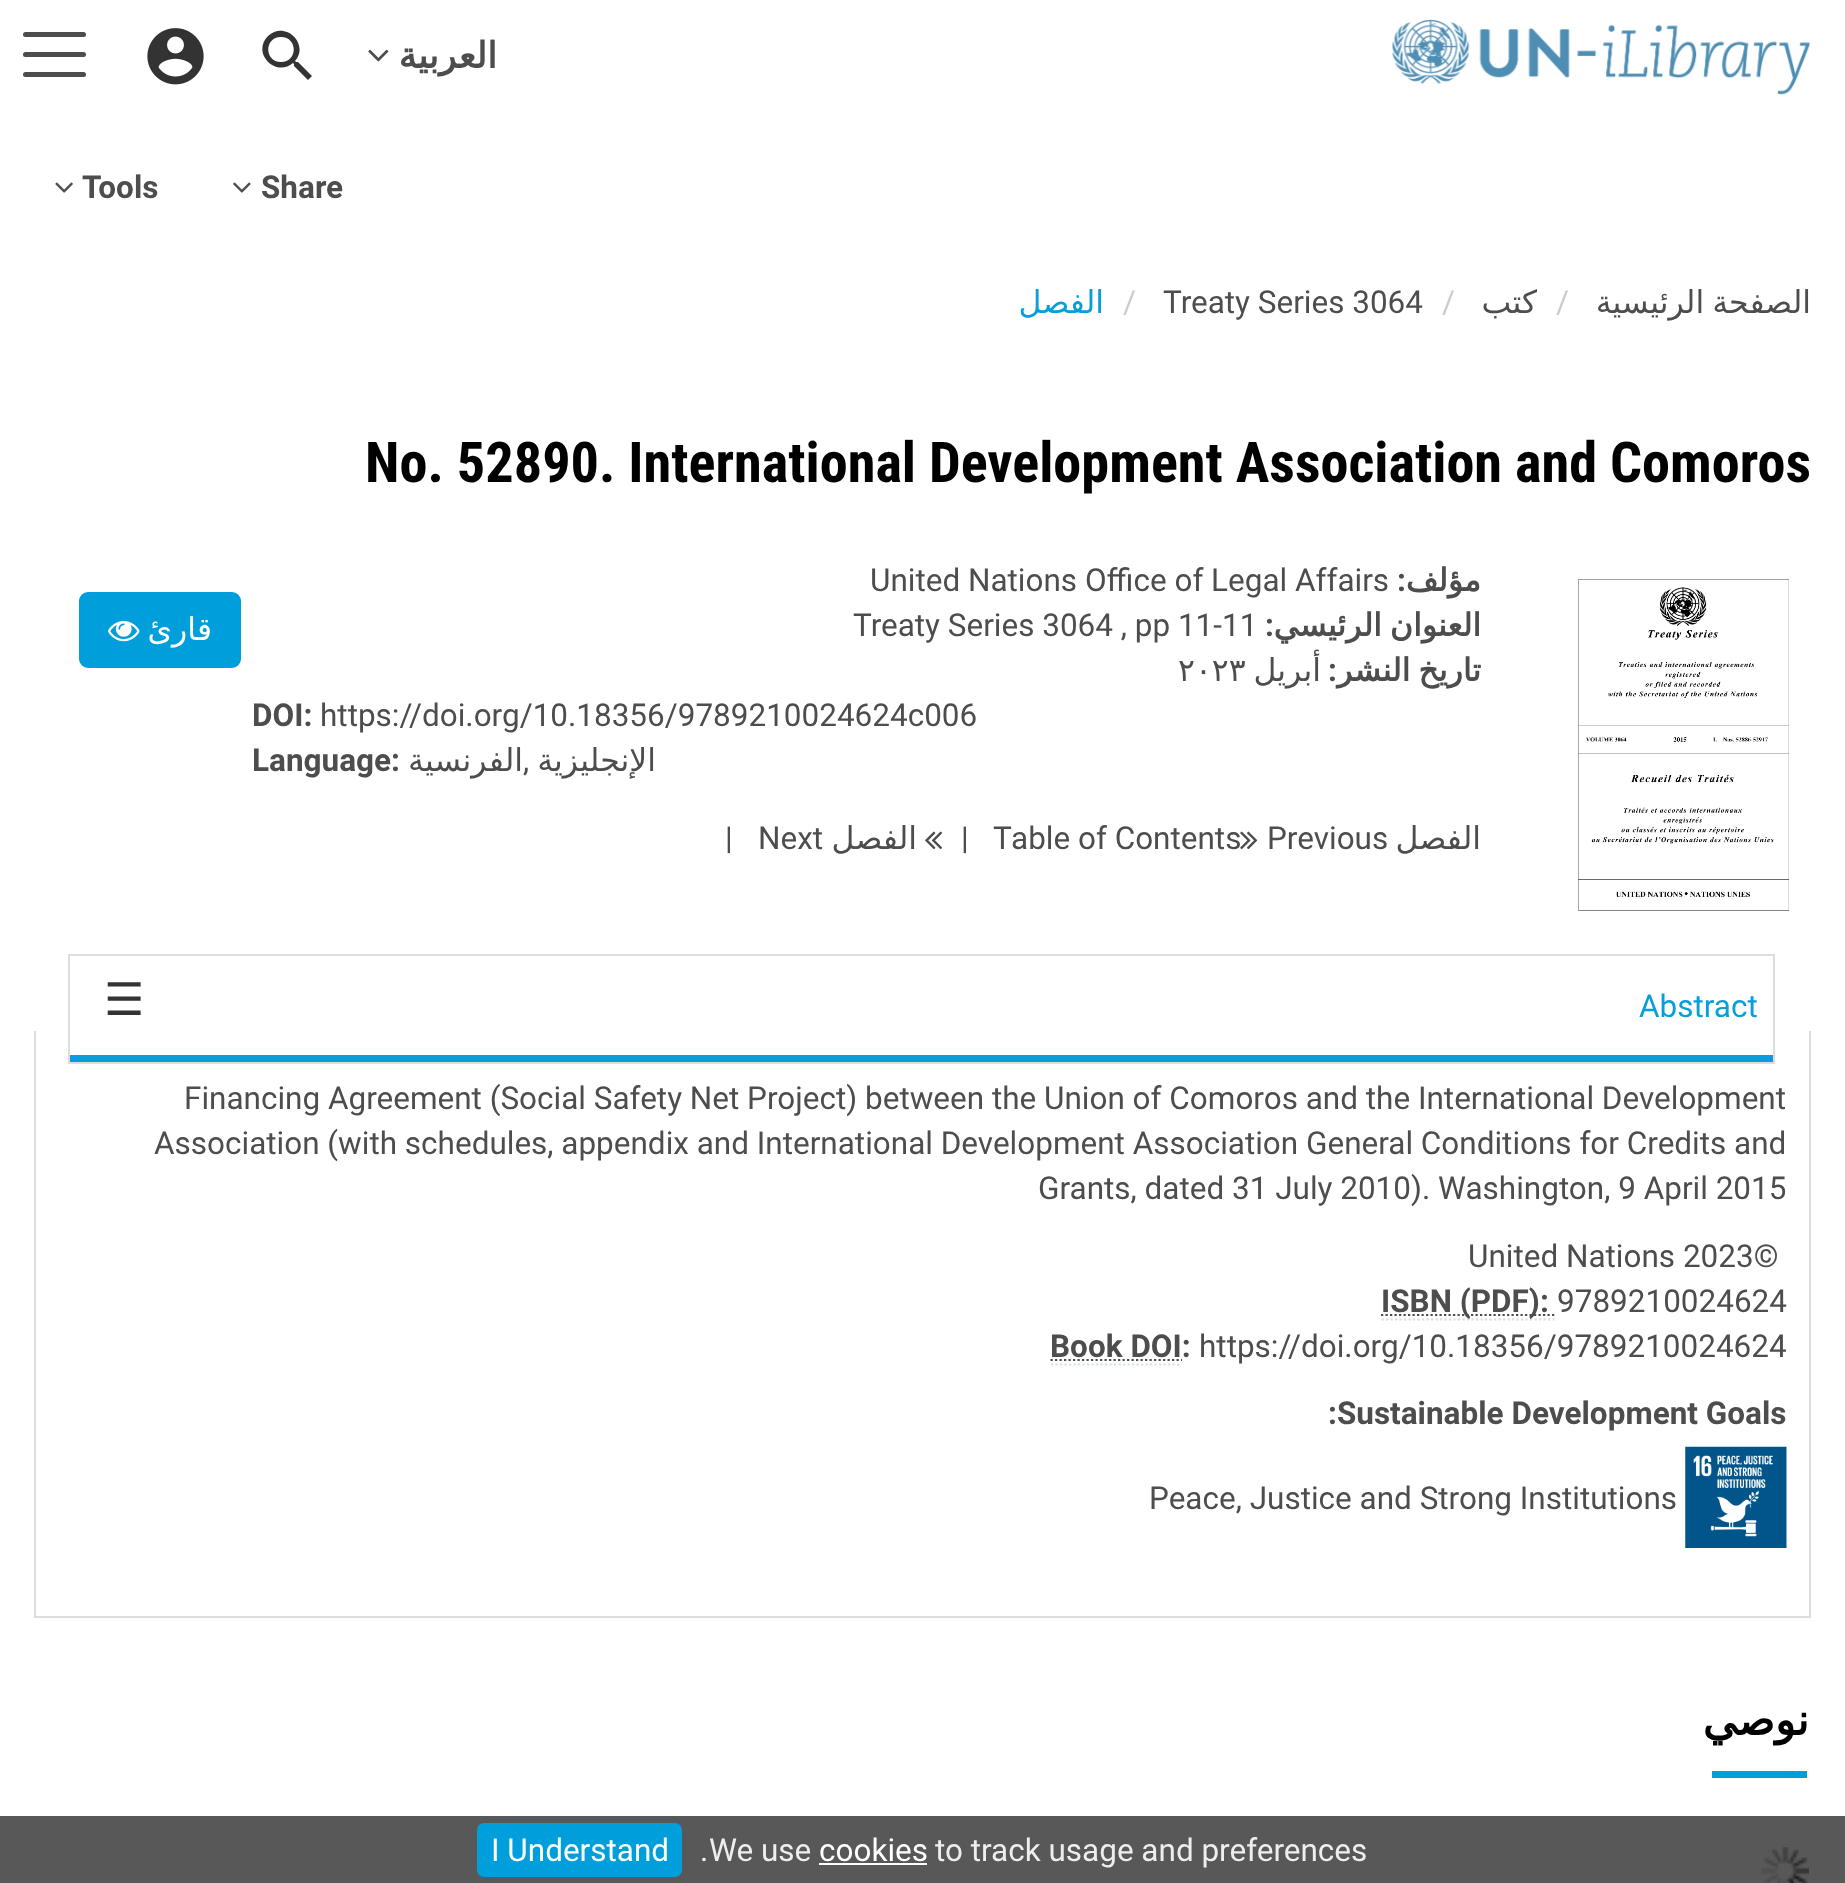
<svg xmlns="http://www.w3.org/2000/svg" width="1845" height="1883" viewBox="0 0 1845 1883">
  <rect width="100%" height="100%" fill="#fff"/>
  <path d="M0 1816h1845v67H0z" fill="#585858"/>
  <rect x="23" y="32" width="63" height="5" rx="2.5" fill="#4d4d4d"/>
  <rect x="23" y="52" width="63" height="5" rx="2.5" fill="#4d4d4d"/>
  <rect x="23" y="72" width="63" height="5" rx="2.5" fill="#4d4d4d"/>
  <image x="147" y="28" width="57" height="57" href="img/1.png"/>
  <path d="M298 62H296L295 61C310 44 285 20 268 36C251 53 276 78 293 63L294 64V66L308 80L312 76ZM281 62C264 62 264 37 281 37C298 37 298 62 281 62Z" fill="#333"/>
  <image x="368" y="49" width="21" height="13" href="img/2.png"/>
  <image x="1391" y="19" width="419" height="76" href="img/3.png"/>
  <image x="55" y="182" width="18" height="11" href="img/4.png"/>
  <image x="233" y="182" width="18" height="11" href="img/5.png"/>
  <rect x="80" y="593" width="160" height="74" rx="8" fill="#009edb" stroke="#009edb" stroke-width="2"/>
  <image x="108" y="621" width="32" height="21" href="img/6.png"/>
  <image x="925" y="831" width="18" height="19" href="img/7.png"/>
  <image x="1240" y="831" width="18" height="19" href="img/8.png"/>
  <image x="1578" y="579" width="211" height="332" href="img/9.png"/>
  <path d="M69 955h1705v108H69z" fill="none" stroke="#ddd" stroke-width="2"/>
  <path d="M70 1055h1703v7H70z" fill="#069edb"/>
  <path d="M1809 1031h2v587H1809z" fill="#ddd"/>
  <path d="M34 1616h1777v2H34z" fill="#ddd"/>
  <path d="M34 1031h2v587H34z" fill="#ddd"/>
  <path d="M1381.5 1319.5H1557" fill="none" stroke="#d5dfec" stroke-width="2.2" stroke-dasharray="2.25 2.25"/>
  <path d="M1381 1315H1556.5" fill="none" stroke="#4d4d4d" stroke-width="2.2" stroke-dasharray="2.25 2.25"/>
  <path d="M1051 1364.5H1181" fill="none" stroke="#d5dfec" stroke-width="2.2" stroke-dasharray="2.25 2.25"/>
  <path d="M1050.5 1360H1182" fill="none" stroke="#4d4d4d" stroke-width="2.2" stroke-dasharray="2.25 2.25"/>
  <image x="1685" y="1446" width="102" height="102" href="img/10.png"/>
  <path d="M1712 1771h95v7H1712z" fill="#009edb"/>
  <image x="1761" y="1847" width="48" height="36" href="img/11.png"/>
  <rect x="477" y="1823" width="205" height="54" rx="7" fill="#009edb"/>
  <path d="M819 1863h108v2H819z" fill="#fff"/>
  <text x="497" y="68" font-family="DejaVu Sans" font-size="36" font-weight="bold" direction="rtl" fill="#4d4d4d">العربية</text>
  <g font-family="Roboto" font-size="31.5" font-weight="bold" fill="#4d4d4d">
    <text x="82" y="198">Tools</text>
    <text x="261" y="198">Share</text>
  </g>
  <text x="1104" y="313" font-family="DejaVu Sans" font-size="31.5" direction="rtl" fill="#069edb">الفصل</text>
  <text x="1123" y="313" font-family="Roboto" font-size="31.5" fill="#ccc">/</text>
  <text x="1163" y="313" font-family="Roboto" font-size="31.5" fill="#4d4d4d">Treaty Series 3064</text>
  <text x="1442" y="313" font-family="Roboto" font-size="31.5" fill="#ccc">/</text>
  <text x="1537" y="313" font-family="DejaVu Sans" font-size="31.5" direction="rtl" fill="#4d4d4d">كتب</text>
  <text x="1556" y="313" font-family="Roboto" font-size="31.5" fill="#ccc">/</text>
  <text x="1811" y="313" word-spacing="-2" font-family="DejaVu Sans" font-size="31.5" direction="rtl" fill="#4d4d4d">الصفحة الرئيسية</text>
  <text x="365" y="482" font-family="Roboto Condensed" font-size="56.25" font-weight="bold" fill="#000">No. 52890. International Development Association and Comoros</text>
  <text x="212" y="640" font-family="DejaVu Sans" font-size="31.5" direction="rtl" fill="#fff">قارئ</text>
  <text x="870" y="591" font-family="Roboto" font-size="31.5" fill="#4d4d4d">United Nations Office of Legal Affairs</text>
  <text x="1406" y="591" font-family="Roboto" font-size="31.5" font-weight="bold" direction="rtl" fill="#4d4d4d">:</text>
  <text x="1481" y="591" font-family="DejaVu Sans" font-size="31.5" font-weight="bold" direction="rtl" fill="#4d4d4d">مؤلف</text>
  <text x="853" y="636" font-family="Roboto" font-size="31.5" fill="#4d4d4d">Treaty Series 3064 , pp 11-11</text>
  <text x="1274" y="636" font-family="Roboto" font-size="31.5" font-weight="bold" direction="rtl" fill="#4d4d4d">:</text>
  <text x="1481" y="636" word-spacing="-2" font-family="DejaVu Sans" font-size="31.5" font-weight="bold" direction="rtl" fill="#4d4d4d">العنوان الرئيسي</text>
  <text x="1178" y="681" font-family="DejaVu Sans" font-size="31.5" fill="#4d4d4d">٢٠٢٣</text>
  <text x="1321" y="681" font-family="DejaVu Sans" font-size="31.5" direction="rtl" fill="#4d4d4d">أبريل</text>
  <text x="1337" y="681" font-family="Roboto" font-size="31.5" font-weight="bold" direction="rtl" fill="#4d4d4d">:</text>
  <text x="1481" y="681" word-spacing="-2" font-family="DejaVu Sans" font-size="31.5" font-weight="bold" direction="rtl" fill="#4d4d4d">تاريخ النشر</text>
  <text x="252" y="726" font-family="Roboto" font-size="31.5" font-weight="bold" fill="#4d4d4d">DOI:</text>
  <text x="320" y="726" font-family="Roboto" font-size="31.5" fill="#4d4d4d">https://doi.org/10.18356/9789210024624c006</text>
  <text x="252" y="771" font-family="Roboto" font-size="31.5" font-weight="bold" fill="#4d4d4d">Language:</text>
  <text x="523" y="771" font-family="DejaVu Sans" font-size="31.5" direction="rtl" fill="#4d4d4d">الفرنسية</text>
  <text x="523" y="771" font-family="Roboto" font-size="31.5" fill="#4d4d4d">,</text>
  <text x="656" y="771" font-family="DejaVu Sans" font-size="31.5" direction="rtl" fill="#4d4d4d">الإنجليزية</text>
  <g font-family="Roboto" font-size="31.5" fill="#4d4d4d">
    <text x="725" y="849">|</text>
    <text x="758" y="849">Next</text>
  </g>
  <text x="917" y="849" font-family="DejaVu Sans" font-size="31.5" direction="rtl" fill="#4d4d4d">الفصل</text>
  <g font-family="Roboto" font-size="31.5" fill="#4d4d4d">
    <text x="961" y="849">|</text>
    <text x="993" y="849">T</text>
    <text x="1011" y="849">able of Contents</text>
    <text x="1267" y="849">Previous</text>
  </g>
  <text x="1481" y="849" font-family="DejaVu Sans" font-size="31.5" direction="rtl" fill="#4d4d4d">الفصل</text>
  <text x="104" y="1015" font-family="DejaVu Sans" font-size="45" fill="#333">☰</text>
  <text x="1639" y="1017" font-family="Roboto" font-size="31.5" fill="#069edb">Abstract</text>
  <g font-family="Roboto" font-size="31.5" fill="#4d4d4d">
    <text x="184" y="1109">Financing Agreement (Social Safety Net Project) between the Union of Comoros and the International Development</text>
    <text x="154" y="1154">Association (with schedules, appendix and International Development Association General Conditions for Credits and</text>
    <text x="1038" y="1199">Grants, dated 31 July 2010). Washington, 9 April 2015</text>
    <text x="1468" y="1267">United Nations 2023©</text>
  </g>
  <text x="1381" y="1312" font-family="Roboto" font-size="31.5" font-weight="bold" fill="#4d4d4d">ISBN (PDF):</text>
  <text x="1557" y="1312" font-family="Roboto" font-size="31.5" fill="#4d4d4d">9789210024624</text>
  <text x="1050" y="1357" font-family="Roboto" font-size="31.5" font-weight="bold" fill="#4d4d4d">Book DOI:</text>
  <text x="1199" y="1357" font-family="Roboto" font-size="31.5" fill="#4d4d4d">https://doi.org/10.18356/9789210024624</text>
  <text x="1328" y="1424" font-family="Roboto" font-size="31.5" font-weight="bold" fill="#4d4d4d">:Sustainable Development Goals</text>
  <text x="1149" y="1509" font-family="Roboto" font-size="31.5" fill="#4d4d4d">Peace, Justice and Strong Institutions</text>
  <text x="1809" y="1735" font-family="DejaVu Sans" font-size="43" font-weight="bold" direction="rtl" fill="#000">نوصي</text>
  <text x="491" y="1861" font-family="Roboto" font-size="31.5" fill="#fff">I Understand</text>
  <g font-family="Roboto" font-size="31.5" fill="#eee">
    <text x="700" y="1861">.</text>
    <text x="709" y="1861">We use</text>
  </g>
  <text x="819" y="1861" font-family="Roboto" font-size="31.5" fill="#fff">cookies</text>
  <text x="935" y="1861" font-family="Roboto" font-size="31.5" fill="#eee">to track usage and preferences</text>
</svg>
